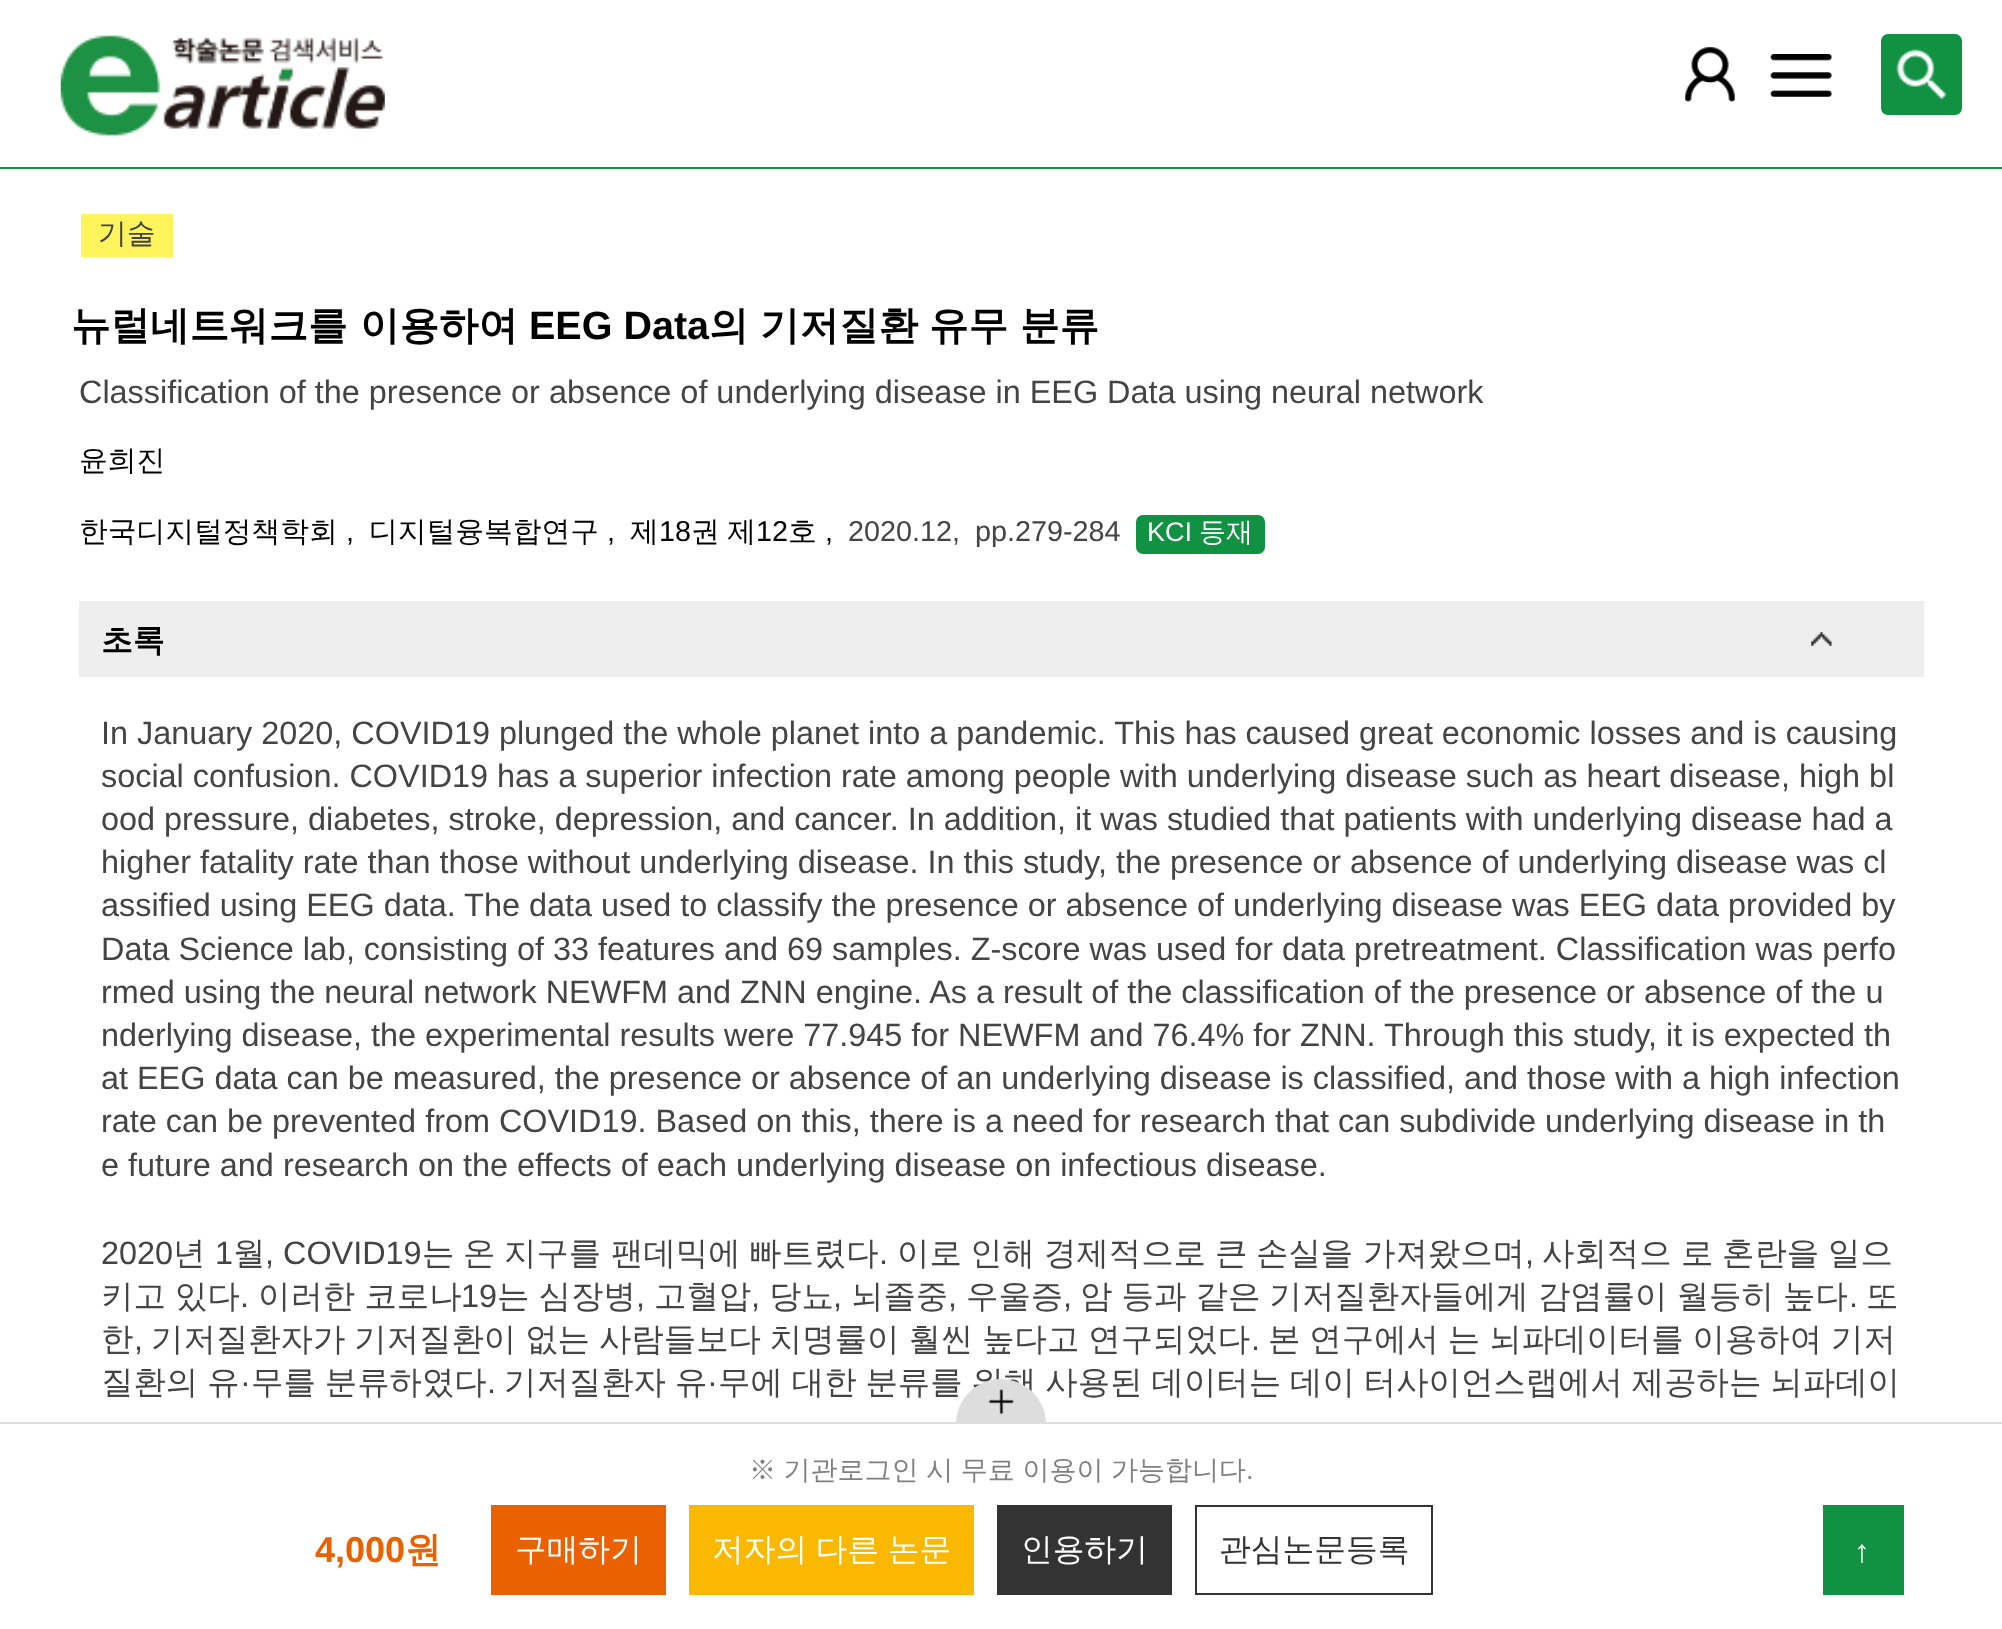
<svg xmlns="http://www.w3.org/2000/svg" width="2002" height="1629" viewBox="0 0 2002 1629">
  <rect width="100%" height="100%" fill="#fff"/>
  <path d="M0 167h2002v2H0z" fill="#119242"/>
  <image x="60" y="35" width="325" height="101" href="img/1.png"/>
  <image x="1685" y="47" width="50" height="55" href="img/2.png"/>
  <image x="1770" y="54" width="62" height="43" href="img/3.png"/>
  <rect x="1881" y="34" width="81" height="81" rx="7" fill="#119242"/>
  <image x="1896" y="49" width="51" height="50" href="img/4.png"/>
  <path d="M81 214h92v43H81z" fill="#fff45c"/>
  <rect x="1136" y="515" width="129" height="39" rx="7" fill="#119242"/>
  <path d="M79 601h1845v76H79z" fill="#eee"/>
  <image x="1811" y="632" width="21" height="14" href="img/5.png"/>
  <path d="M491 1505h175v90H491z" fill="#eb6100"/>
  <path d="M689 1505h285v90H689z" fill="#fab900"/>
  <path d="M997 1505h175v90H997z" fill="#333"/>
  <path d="M1196 1506h236v88H1196z" fill="none" stroke="#333" stroke-width="2"/>
  <path d="M1823 1505h81v90H1823z" fill="#119242"/>
  <text x="98" y="243" font-family="WenQuanYi Zen Hei" font-size="28.75" font-weight="500" fill="#444">기술</text>
  <g font-family="WenQuanYi Zen Hei" font-size="39.5" font-weight="bold" fill="#000">
    <text x="71" y="339">뉴럴네트워크를</text>
    <text x="360" y="339">이용하여</text>
  </g>
  <text x="529" y="339" font-family="Liberation Sans" font-size="39.5" font-weight="bold" fill="#000">EEG Data</text>
  <g font-family="WenQuanYi Zen Hei" font-size="39.5" font-weight="bold" fill="#000">
    <text x="709" y="339">의</text>
    <text x="760" y="339">기저질환</text>
    <text x="929" y="339">유무</text>
    <text x="1020" y="339">분류</text>
  </g>
  <text x="79" y="403" font-family="Liberation Sans" font-size="32.4" fill="#444">Classification of the presence or absence of underlying disease in EEG Data using neural network</text>
  <g font-family="WenQuanYi Zen Hei" font-size="28.75" font-weight="500" fill="#000">
    <text x="79" y="470">윤희진</text>
    <text x="79" y="541">한국디지털정책학회</text>
  </g>
  <text x="346" y="541" font-family="Liberation Sans" font-size="28.75" fill="#000">,</text>
  <text x="369" y="541" font-family="WenQuanYi Zen Hei" font-size="28.75" font-weight="500" fill="#000">디지털융복합연구</text>
  <text x="607" y="541" font-family="Liberation Sans" font-size="28.75" fill="#000">,</text>
  <text x="630" y="541" font-family="WenQuanYi Zen Hei" font-size="28.75" font-weight="500" fill="#000">제</text>
  <text x="659" y="541" font-family="Liberation Sans" font-size="28.75" fill="#000">18</text>
  <text x="691" y="541" word-spacing="-1" font-family="WenQuanYi Zen Hei" font-size="28.75" font-weight="500" fill="#000">권 제</text>
  <text x="756" y="541" font-family="Liberation Sans" font-size="28.75" fill="#000">12</text>
  <text x="788" y="541" font-family="WenQuanYi Zen Hei" font-size="28.75" font-weight="500" fill="#000">호</text>
  <text x="825" y="541" font-family="Liberation Sans" font-size="28.75" fill="#000">,</text>
  <g font-family="Liberation Sans" font-size="28.75" fill="#444">
    <text x="848" y="541">2020.12,</text>
    <text x="975" y="541">pp.279-284</text>
  </g>
  <text x="1147" y="541" font-family="Liberation Sans" font-size="27" fill="#fff">KCI</text>
  <text x="1199" y="541" font-family="WenQuanYi Zen Hei" font-size="27" font-weight="500" fill="#fff">등재</text>
  <text x="101" y="651" font-family="WenQuanYi Zen Hei" font-size="31.75" font-weight="bold" fill="#000">초록</text>
  <g font-family="Liberation Sans" font-size="32.4" fill="#444">
    <text x="101" y="744">In January 2020, COVID19 plunged the whole planet into a pandemic. This has caused great economic losses and is causing</text>
    <text x="101" y="787">social confusion. COVID19 has a superior infection rate among people with underlying disease such as heart disease, high bl</text>
    <text x="101" y="830">ood pressure, diabetes, stroke, depression, and cancer. In addition, it was studied that patients with underlying disease had a</text>
    <text x="101" y="873">higher fatality rate than those without underlying disease. In this study, the presence or absence of underlying disease was cl</text>
    <text x="101" y="916">assified using EEG data. The data used to classify the presence or absence of underlying disease was EEG data provided by</text>
    <text x="101" y="960">Data Science lab, consisting of 33 features and 69 samples. Z-score was used for data pretreatment. Classification was perfo</text>
    <text x="101" y="1003">rmed using the neural network NEWFM and ZNN engine. As a result of the classification of the presence or absence of the u</text>
    <text x="101" y="1046">nderlying disease, the experimental results were 77.945 for NEWFM and 76.4% for ZNN. Through this study, it is expected th</text>
    <text x="101" y="1089">at EEG data can be measured, the presence or absence of an underlying disease is classified, and those with a high infection</text>
    <text x="101" y="1132">rate can be prevented from COVID19. Based on this, there is a need for research that can subdivide underlying disease in th</text>
    <text x="101" y="1176">e future and research on the effects of each underlying disease on infectious disease.</text>
    <text x="101" y="1264">2020</text>
  </g>
  <text x="173" y="1264" font-family="WenQuanYi Zen Hei" font-size="32.4" font-weight="500" fill="#444">년</text>
  <text x="215" y="1264" font-family="Liberation Sans" font-size="32.4" fill="#444">1</text>
  <text x="233" y="1264" font-family="WenQuanYi Zen Hei" font-size="32.4" font-weight="500" fill="#444">월</text>
  <text x="265" y="1264" font-family="Liberation Sans" font-size="32.4" fill="#444">, COVID19</text>
  <g font-family="WenQuanYi Zen Hei" font-size="32.4" font-weight="500" fill="#444">
    <text x="422" y="1264">는</text>
    <text x="463" y="1264">온</text>
    <text x="504" y="1264">지구를</text>
    <text x="611" y="1264">팬데믹에</text>
    <text x="749" y="1264">빠트렸다</text>
  </g>
  <text x="879" y="1264" font-family="Liberation Sans" font-size="32.4" fill="#444">.</text>
  <g font-family="WenQuanYi Zen Hei" font-size="32.4" font-weight="500" fill="#444">
    <text x="897" y="1264">이로</text>
    <text x="970" y="1264">인해</text>
    <text x="1044" y="1264">경제적으로</text>
    <text x="1215" y="1264">큰</text>
    <text x="1256" y="1264">손실을</text>
    <text x="1363" y="1264">가져왔으며</text>
  </g>
  <text x="1525" y="1264" font-family="Liberation Sans" font-size="32.4" fill="#444">,</text>
  <g font-family="WenQuanYi Zen Hei" font-size="32.4" font-weight="500" fill="#444">
    <text x="1542" y="1264">사회적으</text>
    <text x="1681" y="1264">로</text>
    <text x="1722" y="1264">혼란을</text>
    <text x="1828" y="1264">일으</text>
    <text x="101" y="1307" word-spacing="-0.5">키고 있다</text>
  </g>
  <text x="240" y="1307" font-family="Liberation Sans" font-size="32.4" fill="#444">.</text>
  <text x="258" y="1307" word-spacing="-0.5" font-family="WenQuanYi Zen Hei" font-size="32.4" font-weight="500" fill="#444">이러한 코로나</text>
  <text x="461" y="1307" font-family="Liberation Sans" font-size="32.4" fill="#444">19</text>
  <text x="497" y="1307" word-spacing="-0.5" font-family="WenQuanYi Zen Hei" font-size="32.4" font-weight="500" fill="#444">는 심장병</text>
  <text x="636" y="1307" font-family="Liberation Sans" font-size="32.4" fill="#444">,</text>
  <text x="654" y="1307" font-family="WenQuanYi Zen Hei" font-size="32.4" font-weight="500" fill="#444">고혈압</text>
  <text x="751" y="1307" font-family="Liberation Sans" font-size="32.4" fill="#444">,</text>
  <text x="769" y="1307" font-family="WenQuanYi Zen Hei" font-size="32.4" font-weight="500" fill="#444">당뇨</text>
  <text x="833" y="1307" font-family="Liberation Sans" font-size="32.4" fill="#444">,</text>
  <text x="851" y="1307" font-family="WenQuanYi Zen Hei" font-size="32.4" font-weight="500" fill="#444">뇌졸중</text>
  <text x="948" y="1307" font-family="Liberation Sans" font-size="32.4" fill="#444">,</text>
  <text x="966" y="1307" font-family="WenQuanYi Zen Hei" font-size="32.4" font-weight="500" fill="#444">우울증</text>
  <text x="1063" y="1307" font-family="Liberation Sans" font-size="32.4" fill="#444">,</text>
  <text x="1080" y="1307" word-spacing="-0.5" font-family="WenQuanYi Zen Hei" font-size="32.4" font-weight="500" fill="#444">암 등과 같은 기저질환자들에게 감염률이 월등히 높다</text>
  <text x="1849" y="1307" font-family="Liberation Sans" font-size="32.4" fill="#444">.</text>
  <g font-family="WenQuanYi Zen Hei" font-size="32.4" font-weight="500" fill="#444">
    <text x="1866" y="1307">또</text>
    <text x="101" y="1350">한</text>
  </g>
  <text x="134" y="1350" font-family="Liberation Sans" font-size="32.4" fill="#444">,</text>
  <text x="151" y="1350" word-spacing="-0.75" font-family="WenQuanYi Zen Hei" font-size="32.4" font-weight="500" fill="#444">기저질환자가 기저질환이 없는 사람들보다 치명률이 훨씬 높다고 연구되었다</text>
  <text x="1251" y="1350" font-family="Liberation Sans" font-size="32.4" fill="#444">.</text>
  <g font-family="WenQuanYi Zen Hei" font-size="32.4" font-weight="500" fill="#444">
    <text x="1268" y="1350" word-spacing="-0.75">본 연구에서 는 뇌파데이터를 이용하여 기저</text>
    <text x="101" y="1393" word-spacing="-0.75">질환의 유</text>
  </g>
  <text x="240" y="1393" font-family="Liberation Sans" font-size="32.4" fill="#444">·</text>
  <g font-family="WenQuanYi Zen Hei" font-size="32.4" font-weight="500" fill="#444">
    <text x="251" y="1393" word-spacing="-0.75">무를 분류하였다</text>
    <text x="504" y="1393" word-spacing="-0.75">기저질환자 유</text>
  </g>
  <text x="707" y="1393" font-family="Liberation Sans" font-size="32.4" fill="#444">·</text>
  <text x="718" y="1393" word-spacing="-0.75" font-family="WenQuanYi Zen Hei" font-size="32.4" font-weight="500" fill="#444">무에 대한 분류를 위해 사용된 데이터는 데이 터사이언스랩에서 제공하는 뇌파데이</text>
  <text x="487" y="1393" font-family="Liberation Sans" font-size="32.4" fill="#444">.</text>
  <circle cx="1001" cy="1424" r="45" fill="#ddd"/>
  <path d="M0 1422h2002v2H0z" fill="#ddd"/>
  <image x="988" y="1389" width="26" height="26" href="img/6.png"/>
  <path d="M956 1424h90v45H956z" fill="#fff"/>
  <text x="749" y="1479" word-spacing="-0.5" font-family="WenQuanYi Zen Hei" font-size="27" font-weight="500" fill="#808080">※ 기관로그인 시 무료 이용이 가능합니다</text>
  <text x="1246" y="1479" font-family="Liberation Sans" font-size="27" fill="#808080">.</text>
  <text x="315" y="1562" font-family="Liberation Sans" font-size="36" font-weight="bold" fill="#eb6100">4,000</text>
  <text x="405" y="1562" font-family="WenQuanYi Zen Hei" font-size="36" font-weight="bold" fill="#eb6100">원</text>
  <g font-family="WenQuanYi Zen Hei" font-size="31.75" font-weight="500" fill="#fff">
    <text x="515" y="1560">구매하기</text>
    <text x="712" y="1560" word-spacing="-1">저자의 다른 논문</text>
    <text x="1021" y="1560">인용하기</text>
  </g>
  <text x="1219" y="1560" font-family="WenQuanYi Zen Hei" font-size="31.75" font-weight="500" fill="#333">관심논문등록</text>
  <text x="1854" y="1562" font-family="Liberation Sans" font-size="31.75" fill="#fff">↑</text>
</svg>
